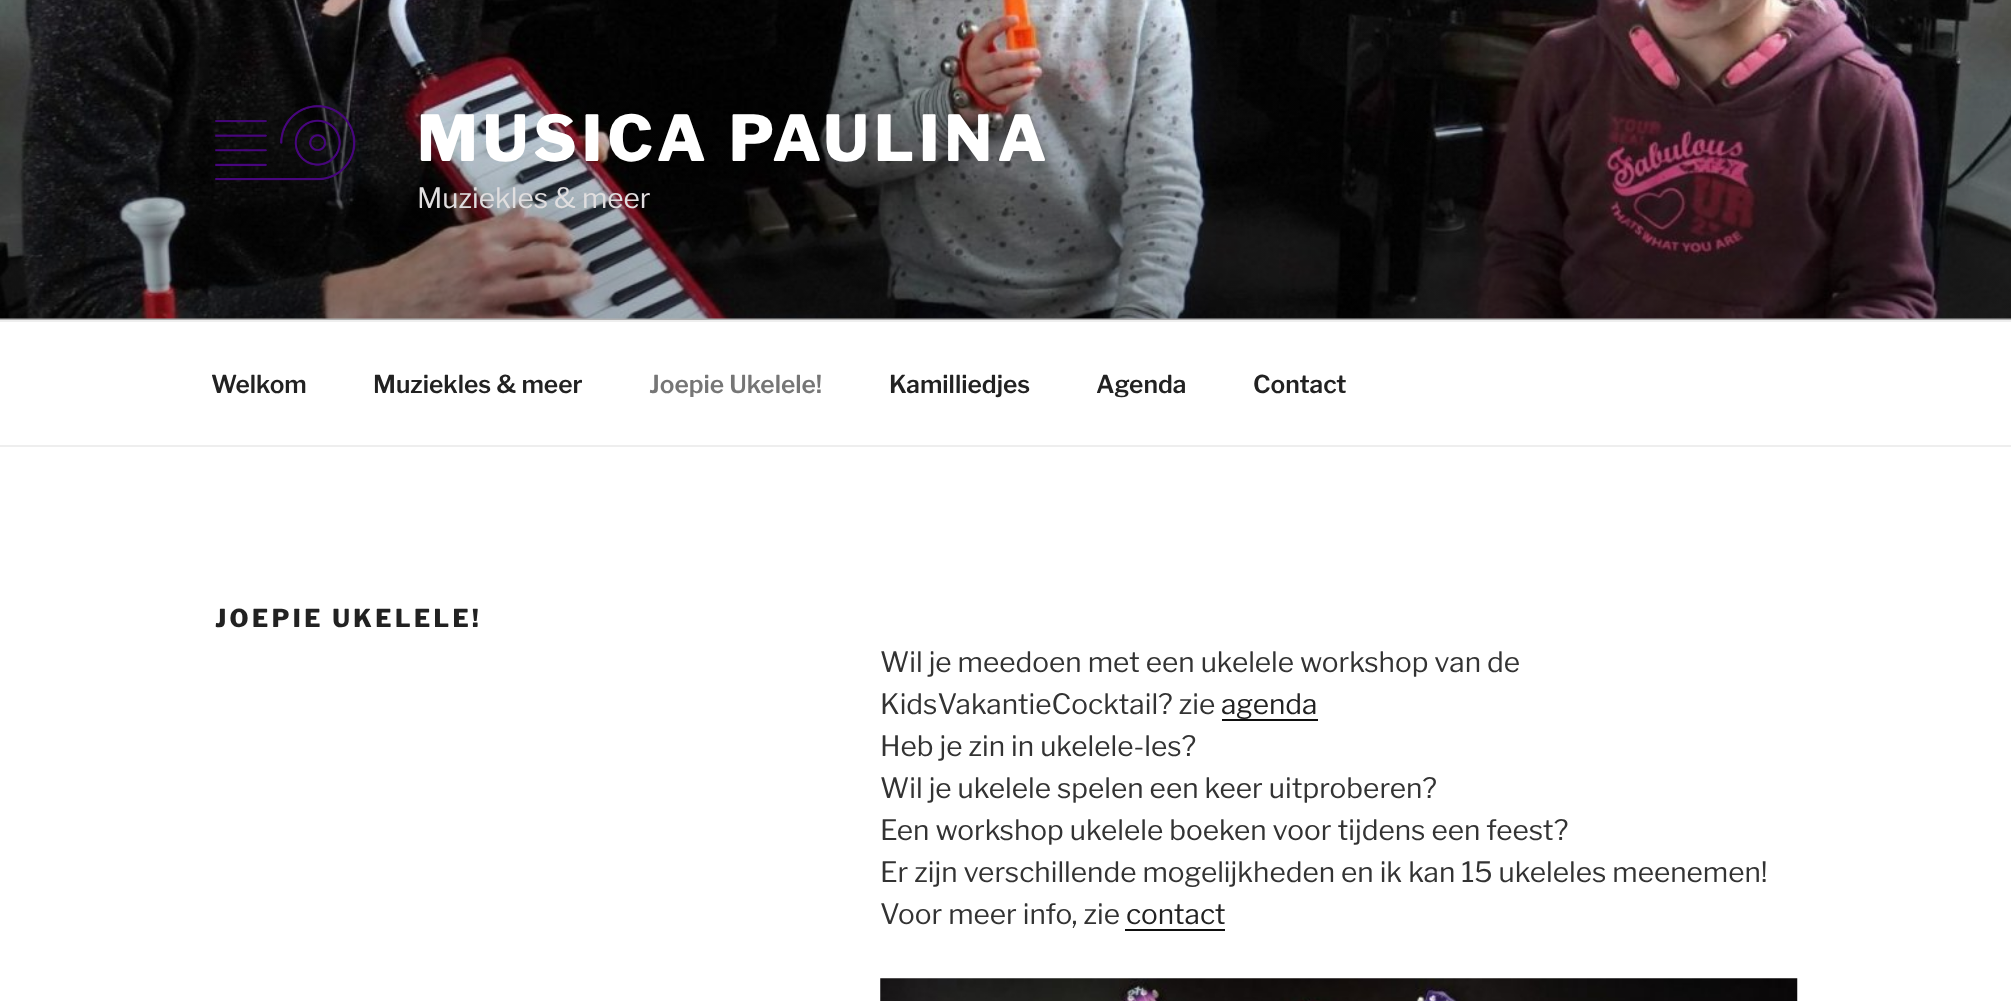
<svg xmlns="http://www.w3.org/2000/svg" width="2011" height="1001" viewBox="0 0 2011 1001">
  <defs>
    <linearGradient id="g1" gradientUnits="userSpaceOnUse" x1="1006" y1="0" x2="1006" y2="320"><stop offset="0" stop-color="#000" stop-opacity="0"/><stop offset="0.75" stop-color="#000" stop-opacity="0.3"/><stop offset="1" stop-color="#000" stop-opacity="0.3"/></linearGradient>
  </defs>
  <rect width="100%" height="100%" fill="#fff"/>
  <path d="M0 318h2011v2H0z" fill="#fafafa"/>
  <image x="0" y="0" width="2011" height="319" href="img/1.png"/>
  <path d="M0 17h2011v303H0z" fill="url(#g1)"/>
  <image x="215" y="105" width="141" height="76" href="img/2.png"/>
  <path d="M0 320h2011v2H0z" fill="#eee"/>
  <path d="M0 445h2011v2H0z" fill="#eee"/>
  <path d="M1222 719h96v2H1222z" fill="#0f0f0f"/>
  <path d="M1125 929h100v2H1125z" fill="#0f0f0f"/>
  <image x="880" y="978" width="918" height="23" href="img/3.png"/>
  <text x="417" y="161" font-family="Libre Franklin" font-size="63" font-weight="100" letter-spacing="5" fill="#fff">MUSICA PAULINA</text>
  <text x="417" y="208" font-family="'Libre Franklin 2'" font-size="28" font-weight="100" fill="#e0dedf">Muziekles &amp; meer</text>
  <g font-family="'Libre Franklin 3'" font-size="24.5" font-weight="100" fill="#222">
    <text x="211" y="393">Welkom</text>
    <text x="373" y="393">Muziekles &amp; meer</text>
  </g>
  <text x="649" y="393" font-family="'Libre Franklin 3'" font-size="24.5" font-weight="100" fill="#767676">Joepie Ukelele!</text>
  <g font-family="'Libre Franklin 3'" font-size="24.5" font-weight="100" fill="#222">
    <text x="889" y="393">Kamilliedjes</text>
    <text x="1096" y="393">Agenda</text>
    <text x="1253" y="393">Contact</text>
  </g>
  <text x="215" y="627" font-family="Libre Franklin" font-size="24.5" font-weight="100" letter-spacing="3.4" fill="#222">JOEPIE UKELELE!</text>
  <g font-family="'Libre Franklin 2'" font-size="28" font-weight="100" fill="#333">
    <text x="880" y="672">Wil je meedoen met een ukelele workshop van de</text>
    <text x="880" y="714">KidsVakantieCocktail? zie</text>
  </g>
  <text x="1221" y="714" font-family="'Libre Franklin 2'" font-size="28" font-weight="100" fill="#222">agenda</text>
  <g font-family="'Libre Franklin 2'" font-size="28" font-weight="100" fill="#333">
    <text x="880" y="756">Heb je zin in ukelele-les?</text>
    <text x="880" y="798">Wil je ukelele spelen een keer uitproberen?</text>
    <text x="880" y="840">Een workshop ukelele boeken voor tijdens een feest?</text>
    <text x="880" y="882">Er zijn verschillende mogelijkheden en ik kan 15 ukeleles meenemen!</text>
    <text x="880" y="924">Voor meer info, zie</text>
  </g>
  <text x="1126" y="924" font-family="'Libre Franklin 2'" font-size="28" font-weight="100" fill="#222">contact</text>
</svg>
